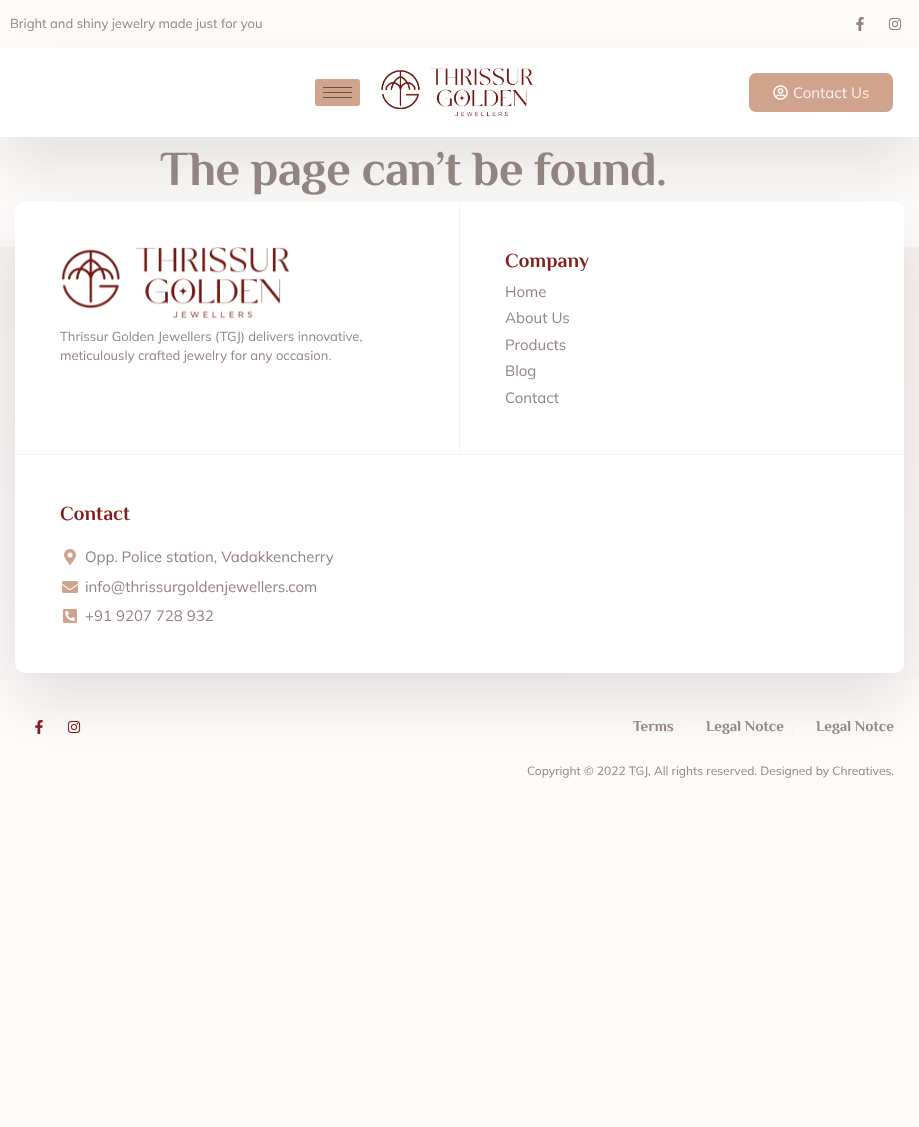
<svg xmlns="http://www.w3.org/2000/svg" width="919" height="1127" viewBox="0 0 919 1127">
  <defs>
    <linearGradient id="g1" gradientUnits="userSpaceOnUse" x1="459" y1="247" x2="460" y2="805"><stop offset="0" stop-color="#f8f2f0"/><stop offset="1" stop-color="#fefbfb"/></linearGradient>
  </defs>
  <rect width="100%" height="100%" fill="#fefbfb"/>
  <image x="856" y="17" width="8" height="14" href="img/1.png"/>
  <image x="888" y="17" width="14" height="14" href="img/2.png"/>
  <path d="M0 247h919v432H0z" fill="url(#g1)"/>
  <path d="M0 78h919v89H0z" fill="#0000001a" filter="blur(30px)"/>
  <path d="M0 48h919v89H0z" fill="#fff"/>
  <rect x="315" y="79" width="45" height="27" rx="3" fill="#d0a38d"/>
  <path d="M323 87h29v1H323z" fill="#685247"/>
  <path d="M323 92h29v1H323z" fill="#685247"/>
  <path d="M323 97h29v1H323z" fill="#685247"/>
  <image x="381" y="68" width="152" height="49" href="img/3.png"/>
  <rect x="749" y="73" width="144" height="39" rx="7" fill="#d0a38d"/>
  <image x="773" y="85" width="15" height="15" href="img/4.png"/>
  <rect x="15" y="232" width="889" height="471" rx="10" fill="#0000001a" filter="blur(30px)"/>
  <rect x="15" y="202" width="889" height="471" rx="10" fill="#fff"/>
  <path d="M459 203h1v252H459z" fill="#f8f2f0"/>
  <path d="M15 454h889v1H15z" fill="#f8f2f0"/>
  <image x="61" y="247" width="229" height="72" href="img/5.png"/>
  <image x="64" y="549" width="12" height="16" href="img/6.png"/>
  <image x="62" y="581" width="16" height="12" href="img/7.png"/>
  <image x="63" y="609" width="14" height="14" href="img/8.png"/>
  <image x="35" y="720" width="8" height="14" href="img/9.png"/>
  <image x="67" y="720" width="14" height="14" href="img/10.png"/>
  <path d="M682 717h1v20H682z" fill="#f8f2f0"/>
  <path d="M792 717h1v20H792z" fill="#f8f2f0"/>
  <text x="10" y="28" font-family="Mulish" font-size="13" fill="#928480">Bright and shiny jewelry made just for you</text>
  <text x="793" y="98" font-family="Mulish" font-size="15" fill="#f8f2f0">Contact Us</text>
  <text x="160" y="185" font-family="Philosopher" font-size="48.75" font-weight="bold" letter-spacing="-0.7" fill="#928480">The page can’t be found.</text>
  <g font-family="Mulish" font-size="13" fill="#928480">
    <text x="60" y="341">Thrissur Golden Jewellers (TGJ) delivers innovative,</text>
    <text x="60" y="360">meticulously crafted jewelry for any occasion.</text>
  </g>
  <text x="505" y="267" font-family="Philosopher" font-size="20" font-weight="bold" fill="#831e1d">Company</text>
  <g font-family="Mulish" font-size="15" fill="#928480">
    <text x="505" y="297">Home</text>
    <text x="505" y="323">About Us</text>
    <text x="505" y="350">Products</text>
    <text x="505" y="376">Blog</text>
    <text x="505" y="403">Contact</text>
  </g>
  <text x="60" y="520" font-family="Philosopher" font-size="20" font-weight="bold" fill="#831e1d">Contact</text>
  <g font-family="Mulish" font-size="15" fill="#928480">
    <text x="85" y="562">Opp. Police station, Vadakkencherry</text>
    <text x="85" y="592">info@thrissurgoldenjewellers.com</text>
    <text x="85" y="621">+91 9207 728 932</text>
  </g>
  <g font-family="Philosopher" font-size="15" font-weight="bold" fill="#928480">
    <text x="633" y="731">Terms</text>
    <text x="706" y="731">Legal Notce</text>
    <text x="816" y="731">Legal Notce</text>
  </g>
  <text x="527" y="775" font-family="Mulish" font-size="12" fill="#928480">Copyright © 2022 TGJ, All rights reserved. Designed by Chreatives.</text>
</svg>
